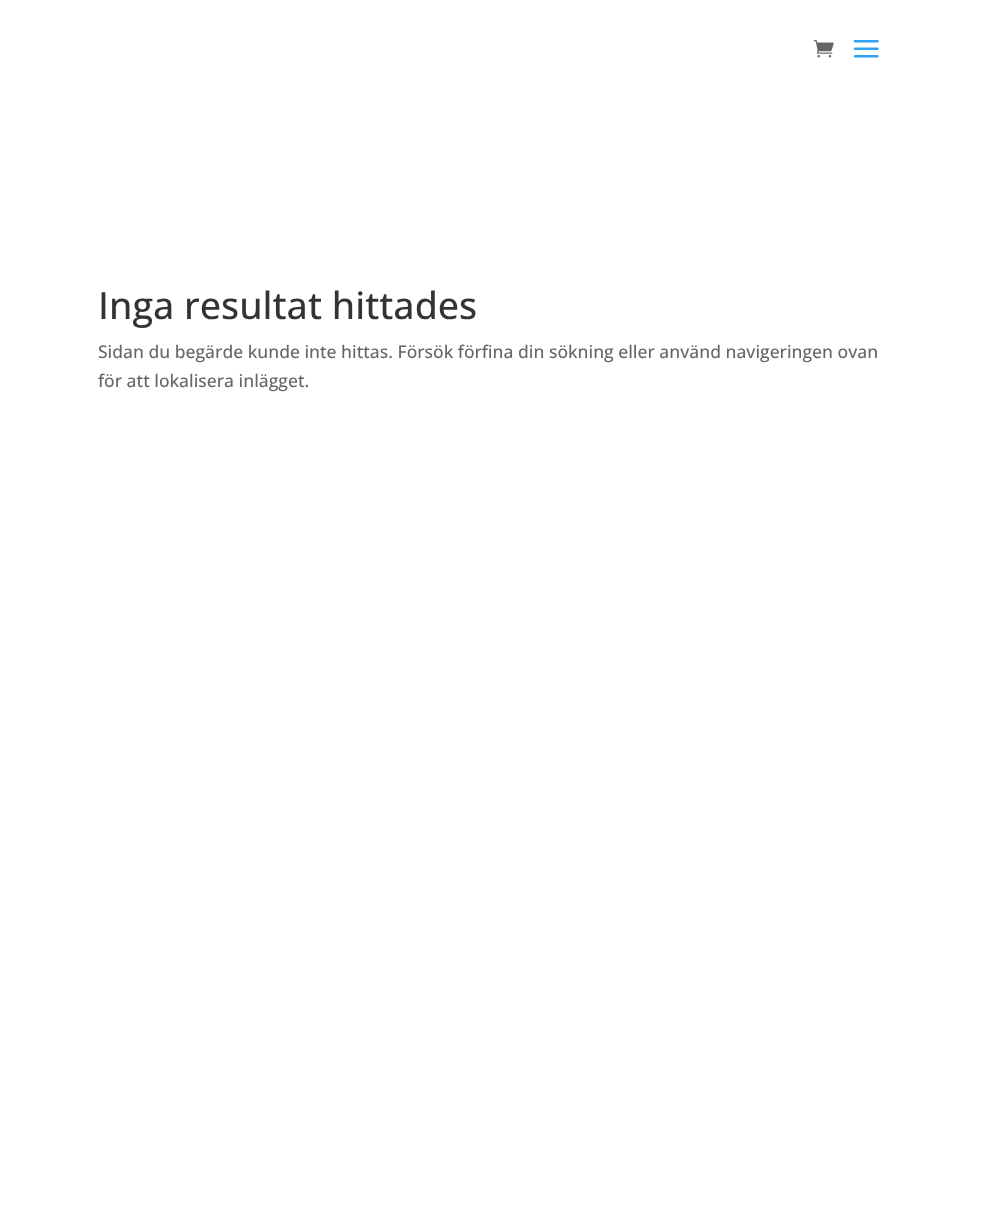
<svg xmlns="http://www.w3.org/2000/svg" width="985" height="1211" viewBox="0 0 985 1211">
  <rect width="100%" height="100%" fill="#fff"/>
  <image x="813" y="40" width="21" height="18" href="img/1.png"/>
  <image x="853" y="40" width="26" height="18" href="img/2.png"/>
  <text x="98" y="319" font-family="Open Sans" font-size="37.5" font-weight="500" fill="#333">Inga resultat hittades</text>
  <g font-family="Open Sans" font-size="17.5" font-weight="500" fill="#666">
    <text x="98" y="358">Sidan du begärde kunde inte hittas. Försök förfina din sökning eller använd navigeringen ovan</text>
    <text x="98" y="387">för att lokalisera inlägget.</text>
  </g>
</svg>
